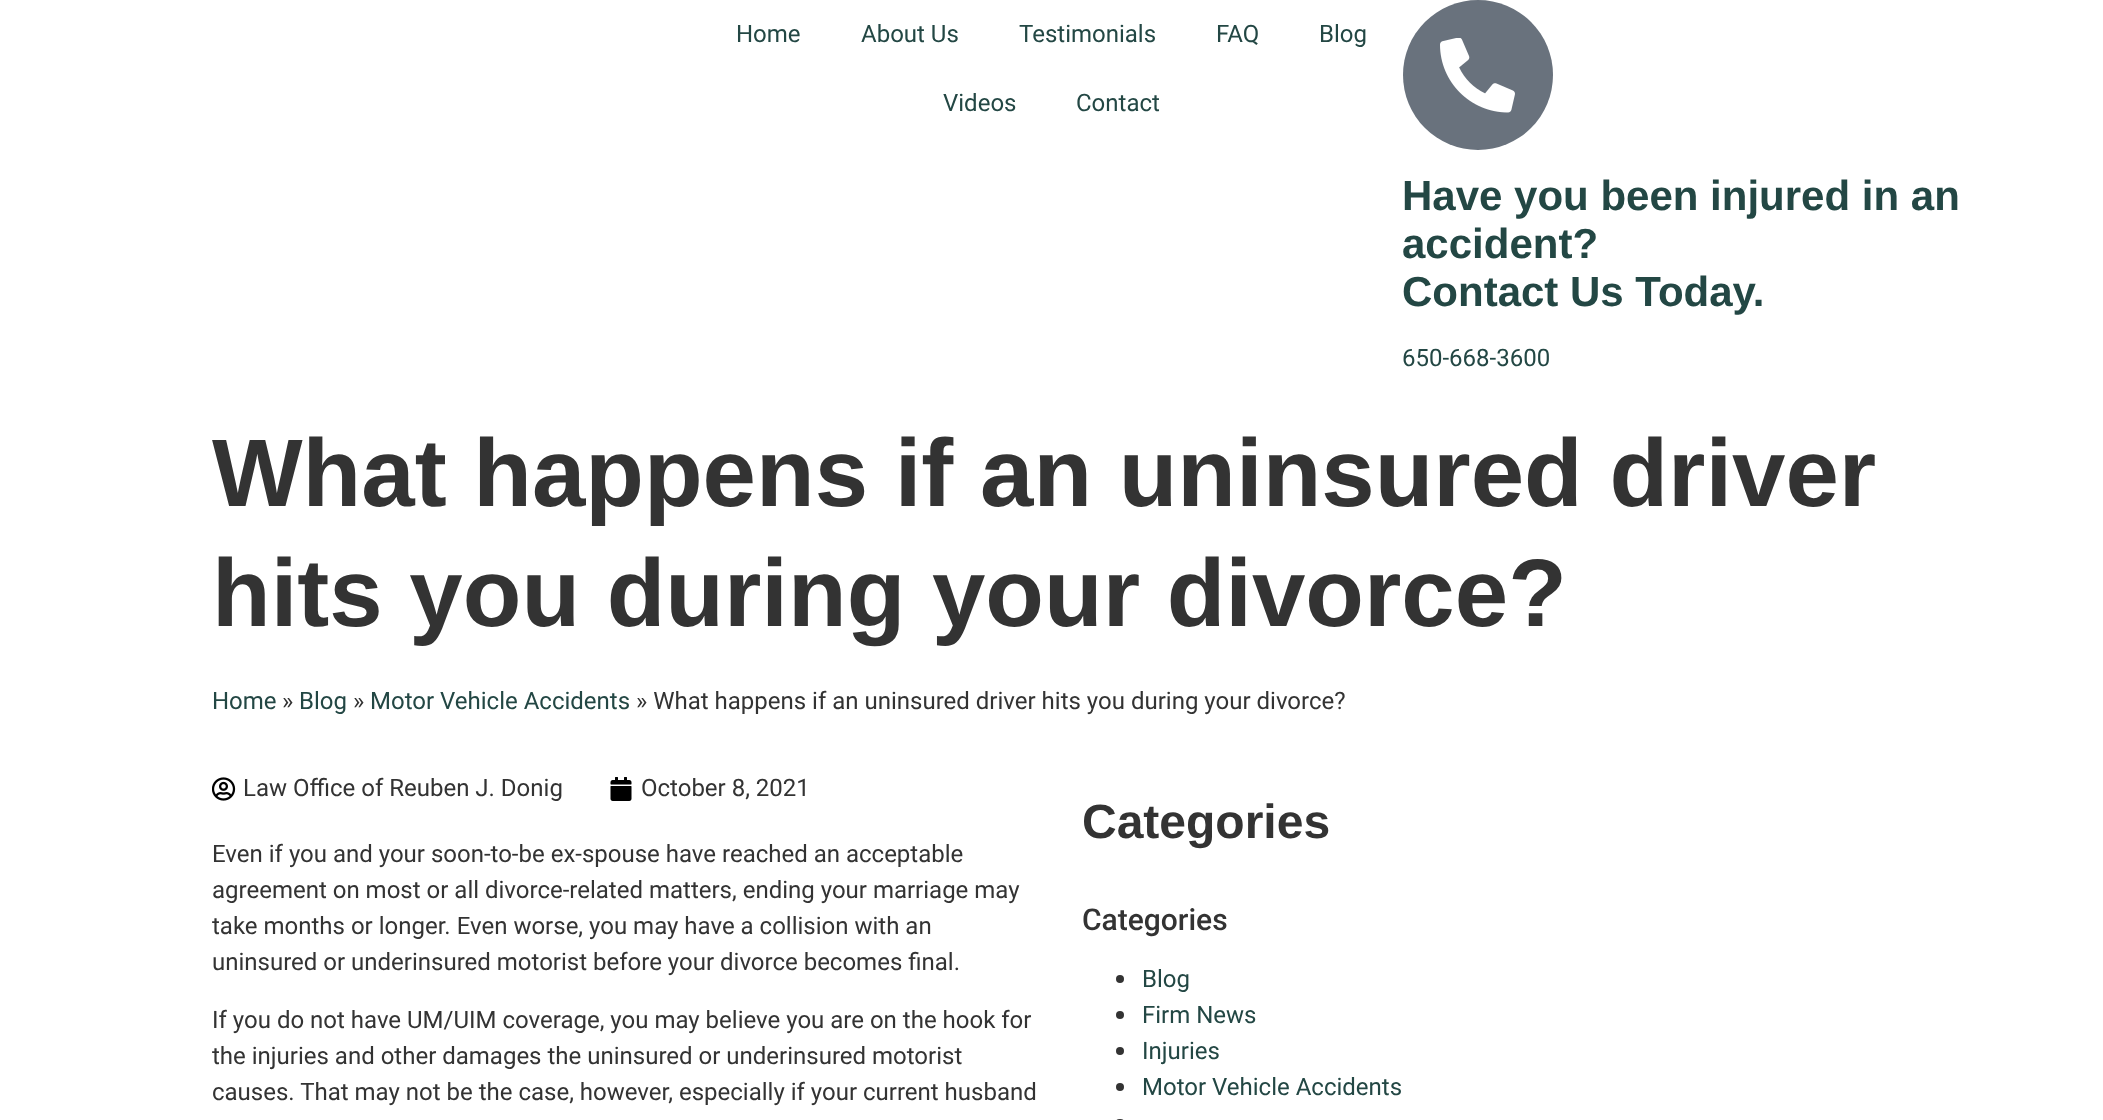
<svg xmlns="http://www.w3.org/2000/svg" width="2103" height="1120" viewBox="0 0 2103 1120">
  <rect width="100%" height="100%" fill="#fff"/>
  <circle cx="1478" cy="75" r="75" fill="#69727d"/>
  <image x="1440" y="38" width="75" height="75" href="img/1.png"/>
  <image x="212" y="777" width="24" height="24" href="img/2.png"/>
  <image x="610" y="777" width="22" height="24" href="img/3.png"/>
  <circle cx="1120" cy="979" r="4" fill="#333"/>
  <circle cx="1120" cy="1015" r="4" fill="#333"/>
  <circle cx="1120" cy="1051" r="4" fill="#333"/>
  <circle cx="1120" cy="1087" r="4" fill="#333"/>
  <rect x="1116" y="1119" width="8" height="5" rx="4" fill="#333"/>
  <g font-family="Roboto" font-size="24" fill="#234744">
    <text x="736" y="42">Home</text>
    <text x="861" y="42">About Us</text>
    <text x="1019" y="42">Testimonials</text>
    <text x="1216" y="42">FAQ</text>
    <text x="1319" y="42">Blog</text>
    <text x="943" y="111">Videos</text>
    <text x="1076" y="111">Contact</text>
  </g>
  <g font-family="Liberation Sans" font-size="42" font-weight="bold" fill="#234744">
    <text x="1402" y="210">Have you been injured in an</text>
    <text x="1402" y="258">accident?</text>
    <text x="1402" y="306">Contact Us Today.</text>
  </g>
  <text x="1402" y="366" font-family="Roboto" font-size="24" fill="#234744">650-668-3600</text>
  <g font-family="Liberation Sans" font-size="96" font-weight="bold" fill="#333">
    <text x="212" y="506">What happens if an uninsured driver</text>
    <text x="212" y="626">hits you during your divorce?</text>
  </g>
  <text x="212" y="709" font-family="Roboto" font-size="24" fill="#234744">Home</text>
  <text x="282" y="709" font-family="Roboto" font-size="24" fill="#333">»</text>
  <text x="299" y="709" font-family="Roboto" font-size="24" fill="#234744">Blog</text>
  <text x="353" y="709" font-family="Roboto" font-size="24" fill="#333">»</text>
  <text x="370" y="709" font-family="Roboto" font-size="24" fill="#234744">Motor Vehicle Accidents</text>
  <g font-family="Roboto" font-size="24" fill="#333">
    <text x="636" y="709">» What happens if an uninsured driver hits you during your divorce?</text>
    <text x="243" y="796">Law Office of Reuben J. Donig</text>
    <text x="641" y="796">October 8, 2021</text>
    <text x="212" y="862">Even if you and your soon-to-be ex-spouse have reached an acceptable</text>
    <text x="212" y="898">agreement on most or all divorce-related matters, ending your marriage may</text>
    <text x="212" y="934">take months or longer. Even worse, you may have a collision with an</text>
    <text x="212" y="970">uninsured or underinsured motorist before your divorce becomes final.</text>
    <text x="212" y="1028">If you do not have UM/UIM coverage, you may believe you are on the hook for</text>
    <text x="212" y="1064">the injuries and other damages the uninsured or underinsured motorist</text>
    <text x="212" y="1100">causes. That may not be the case, however, especially if your current husband</text>
  </g>
  <text x="1082" y="838" font-family="Liberation Sans" font-size="48" font-weight="bold" fill="#333">Categories</text>
  <text x="1082" y="930" font-family="Roboto" font-size="30" font-weight="500" fill="#333">Categories</text>
  <g font-family="Roboto" font-size="24" fill="#234744">
    <text x="1142" y="987">Blog</text>
    <text x="1142" y="1023">Firm News</text>
    <text x="1142" y="1059">Injuries</text>
    <text x="1142" y="1095">Motor Vehicle Accidents</text>
  </g>
</svg>
